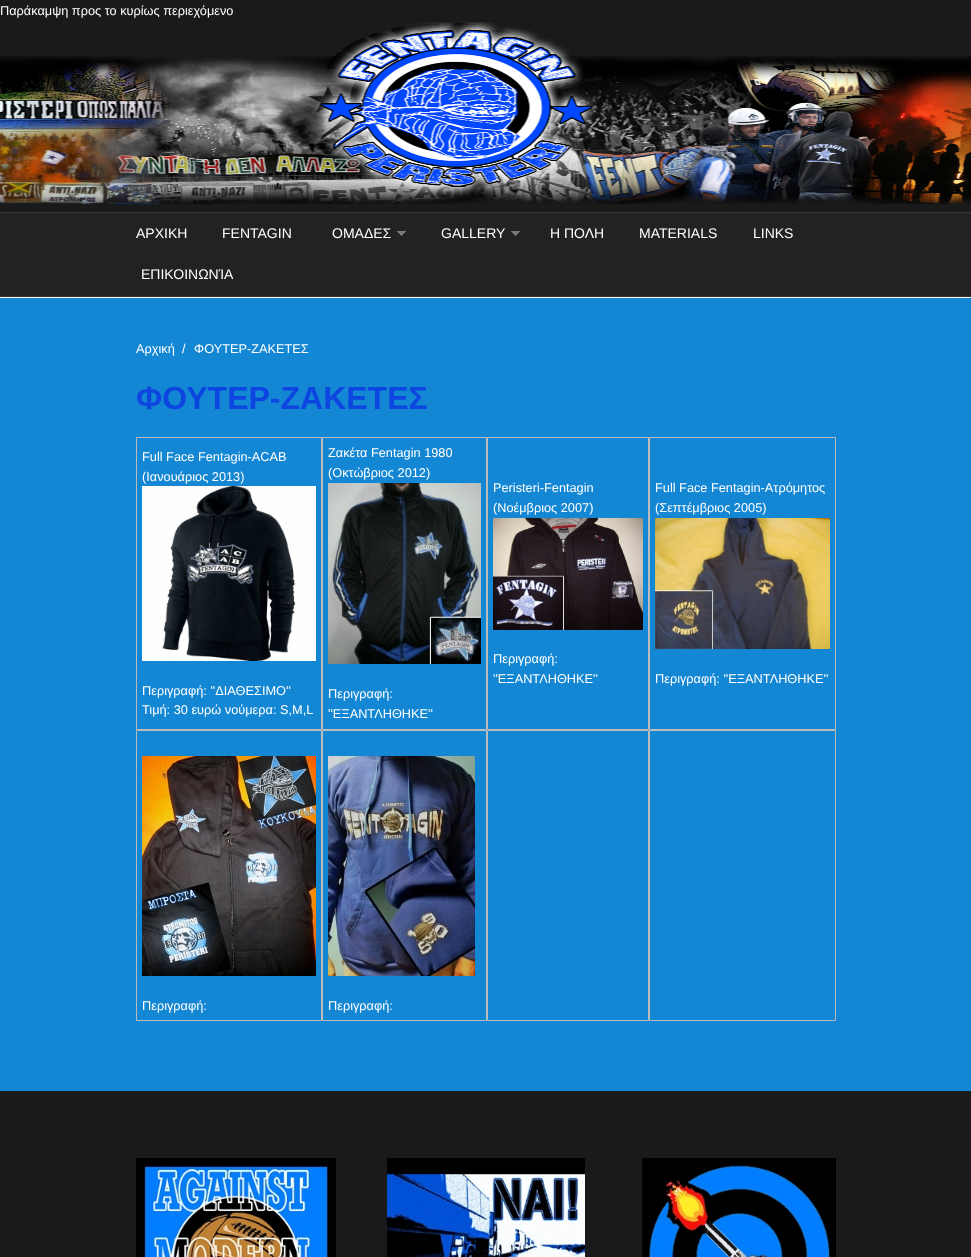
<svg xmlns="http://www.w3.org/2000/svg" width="971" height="1257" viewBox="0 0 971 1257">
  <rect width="100%" height="100%" fill="#1a1a1a"/>
  <image x="0" y="22" width="971" height="183" href="img/1.png"/>
  <path d="M0 213h971v83H0z" fill="#222"/>
  <path d="M0 212h971v1H0z" fill="#353535"/>
  <path d="M0 296h971v1H0z" fill="#353535"/>
  <image x="397" y="231" width="9" height="5" href="img/2.png"/>
  <image x="511" y="231" width="9" height="5" href="img/2.png"/>
  <path d="M0 297h971v1H0z" fill="#fcfcfc"/>
  <path d="M0 298h971v793H0z" fill="#1487d4"/>
  <path d="M136.5 437.5h185v292H136.5z" fill="none" stroke="#bbb"/>
  <image x="142" y="486" width="174" height="175" href="img/3.png"/>
  <path d="M322.5 437.5h164v292H322.5z" fill="none" stroke="#bbb"/>
  <image x="328" y="483" width="153" height="181" href="img/4.png"/>
  <path d="M487.5 437.5h161v292H487.5z" fill="none" stroke="#bbb"/>
  <image x="493" y="518" width="150" height="112" href="img/5.png"/>
  <path d="M649.5 437.5h186v292H649.5z" fill="none" stroke="#bbb"/>
  <image x="655" y="518" width="175" height="131" href="img/6.png"/>
  <path d="M136.5 730.5h185v290H136.5z" fill="none" stroke="#bbb"/>
  <image x="142" y="756" width="174" height="220" href="img/7.png"/>
  <path d="M322.5 730.5h164v290H322.5z" fill="none" stroke="#bbb"/>
  <image x="328" y="756" width="147" height="220" href="img/8.png"/>
  <path d="M487.5 730.5h161v290H487.5z" fill="none" stroke="#bbb"/>
  <path d="M649.5 730.5h186v290H649.5z" fill="none" stroke="#bbb"/>
  <image x="136" y="1158" width="200" height="99" href="img/9.png"/>
  <image x="387" y="1158" width="198" height="99" href="img/10.png"/>
  <image x="642" y="1158" width="194" height="99" href="img/11.png"/>
  <text x="0" y="15" font-family="Liberation Sans" font-size="12.75" fill="#fff">Παράκαμψη προς το κυρίως περιεχόμενο</text>
  <g font-family="Liberation Sans" font-size="14" fill="#fff">
    <text x="136" y="238">ΑΡΧΙΚΗ</text>
    <text x="222" y="238">FENTAGIN</text>
    <text x="332" y="238">ΟΜΑΔΕΣ</text>
    <text x="441" y="238">GALLERY</text>
    <text x="550" y="238">Η ΠΟΛΗ</text>
    <text x="639" y="238">MATERIALS</text>
    <text x="753" y="238">LINKS</text>
    <text x="141" y="279">ΕΠΙΚΟΙΝΩΝΊΑ</text>
  </g>
  <g font-family="Liberation Sans" font-size="12.75" fill="#fff">
    <text x="136" y="353">Αρχική</text>
    <text x="182" y="353">/</text>
    <text x="194" y="353">ΦΟΥΤΕΡ-ΖΑΚΕΤΕΣ</text>
  </g>
  <text x="136" y="409" font-family="Liberation Sans" font-size="32" font-weight="bold" fill="#0d45e1">ΦΟΥΤΕΡ-ΖΑΚΕΤΕΣ</text>
  <g font-family="Liberation Sans" font-size="12.75" fill="#fff">
    <text x="142" y="461">Full Face Fentagin-ACAB</text>
    <text x="142" y="481">(Ιανουάριος 2013)</text>
    <text x="142" y="695">Περιγραφή: ''ΔΙΑΘΕΣΙΜΟ''</text>
    <text x="142" y="714">Τιμή: 30 ευρώ νούμερα: S,M,L</text>
    <text x="328" y="457">Ζακέτα Fentagin 1980</text>
    <text x="328" y="477">(Οκτώβριος 2012)</text>
    <text x="328" y="698">Περιγραφή:</text>
    <text x="328" y="718">''ΕΞΑΝΤΛΗΘΗΚΕ''</text>
    <text x="493" y="492">Peristeri-Fentagin</text>
    <text x="493" y="512">(Νοέμβριος 2007)</text>
    <text x="493" y="663">Περιγραφή:</text>
    <text x="493" y="683">''ΕΞΑΝΤΛΗΘΗΚΕ''</text>
    <text x="655" y="492">Full Face Fentagin-Ατρόμητος</text>
    <text x="655" y="512">(Σεπτέμβριος 2005)</text>
    <text x="655" y="683">Περιγραφή: ''ΕΞΑΝΤΛΗΘΗΚΕ''</text>
    <text x="142" y="1010">Περιγραφή:</text>
    <text x="328" y="1010">Περιγραφή:</text>
  </g>
</svg>
